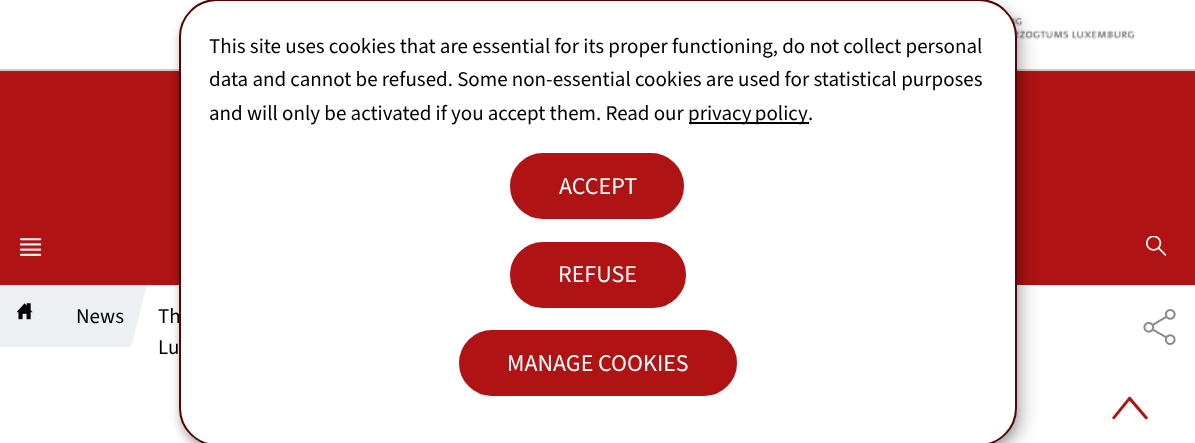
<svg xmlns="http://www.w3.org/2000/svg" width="1195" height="443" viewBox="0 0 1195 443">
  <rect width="100%" height="100%" fill="#fff"/>
  <path d="M0 69h1195v2H0z" fill="#cccaca"/>
  <image x="1011" y="16" width="124" height="24" href="img/1.png"/>
  <path d="M0 71h1195v214H0z" fill="#af1313"/>
  <image x="19" y="238" width="23" height="18" href="img/2.png"/>
  <image x="1146" y="236" width="21" height="20" href="img/3.png"/>
  <path d="M-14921 285H79L62 347H-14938Z" fill="#edf0f2"/>
  <image x="16" y="303" width="17" height="17" href="img/4.png"/>
  <path d="M69 285H147L131 347H53Z" fill="#edf0f2"/>
  <image x="1143" y="309" width="33" height="36" href="img/5.png"/>
  <image x="1112" y="396" width="36" height="24" href="img/6.png"/>
  <rect x="186" y="6" width="839" height="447" rx="38" fill="#00000030" filter="blur(7.5px)"/>
  <rect x="179" y="5" width="838" height="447" rx="38" fill="#00000033" filter="blur(4.5px)"/>
  <g font-family="'Source Sans 3'" font-size="21" fill="#000">
    <text x="76" y="323">News</text>
    <text x="158" y="323">Th</text>
    <text x="158" y="354">Lu</text>
  </g>
  <rect x="180" y="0" width="836" height="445" rx="37" fill="#fff" stroke="#500606" stroke-width="2"/>
  <g font-family="'Source Sans 3'" font-size="21" fill="#000">
    <text x="209" y="53">This site uses cookies that are essential for its proper functioning, do not collect personal</text>
    <text x="209" y="86">data and cannot be refused. Some non-essential cookies are used for statistical purposes</text>
    <text x="209" y="120">and will only be activated if you accept them. Read our</text>
  </g>
  <path d="M689 122h120v2H689z" fill="#000"/>
  <g font-family="'Source Sans 3'" font-size="21" fill="#000">
    <text x="688" y="120" word-spacing="-1">privacy policy</text>
    <text x="808" y="120">.</text>
  </g>
  <rect x="511.5" y="154.5" width="171" height="63" rx="31.5" fill="#af1313" stroke="#af1313" stroke-width="3"/>
  <text x="559" y="194" font-family="'Source Sans 3'" font-size="24" fill="#fff">ACCEPT</text>
  <rect x="511.5" y="243.5" width="173" height="63" rx="31.5" fill="#af1313" stroke="#af1313" stroke-width="3"/>
  <text x="558" y="282" font-family="'Source Sans 3'" font-size="24" fill="#fff">REFUSE</text>
  <rect x="460.5" y="331.5" width="275" height="63" rx="31.5" fill="#af1313" stroke="#af1313" stroke-width="3"/>
  <text x="507" y="371" font-family="'Source Sans 3'" font-size="24" fill="#fff">MANAGE COOKIES</text>
</svg>
